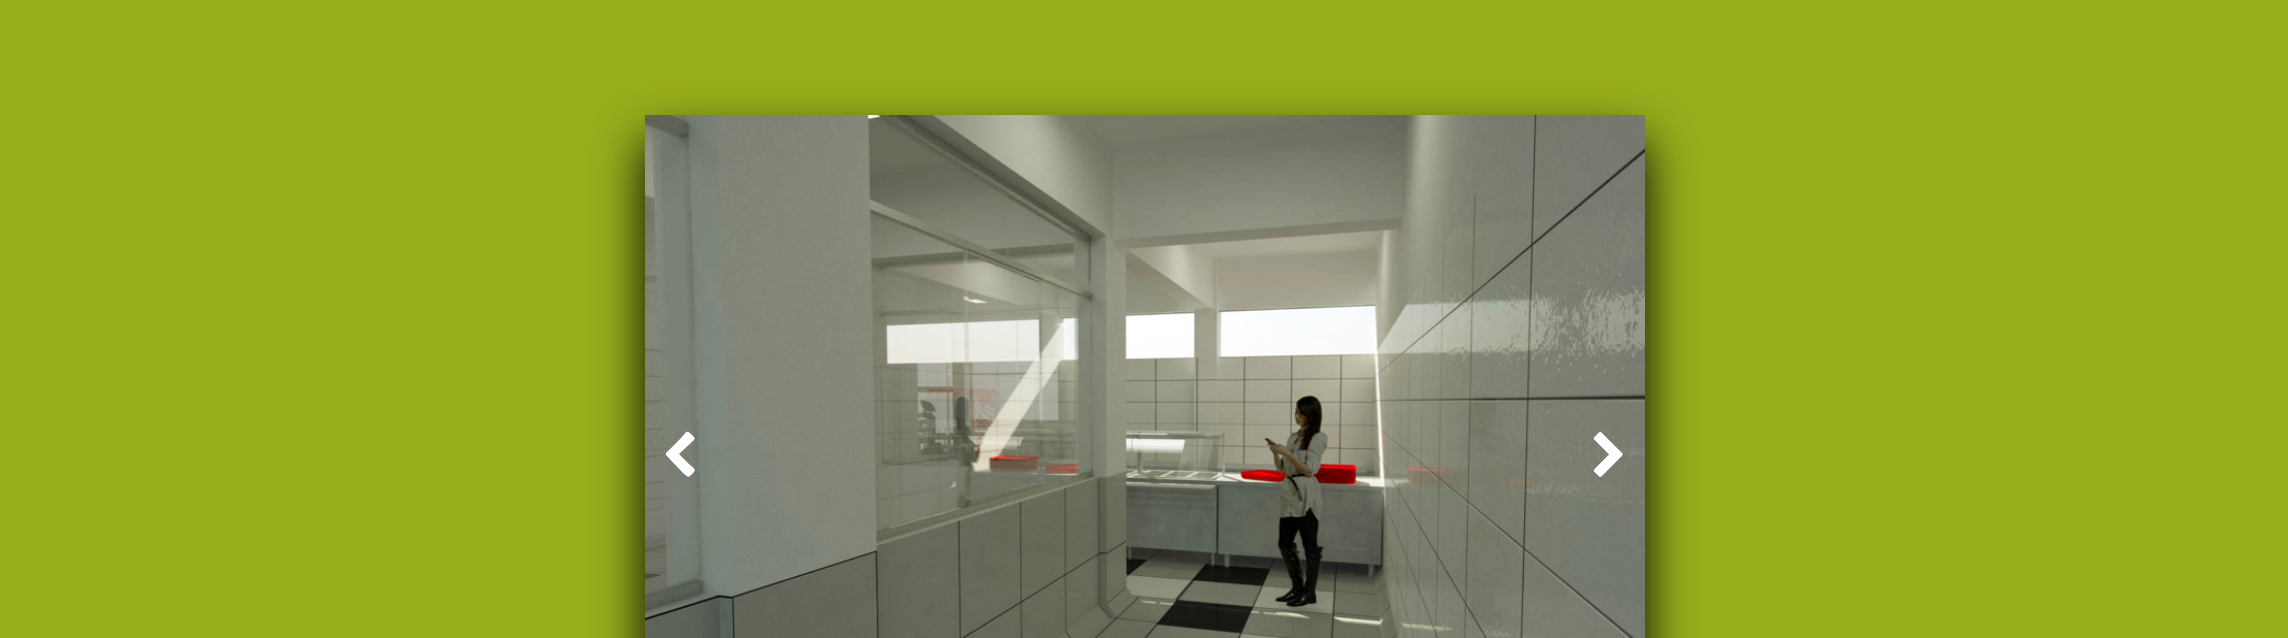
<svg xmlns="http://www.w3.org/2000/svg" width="2288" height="638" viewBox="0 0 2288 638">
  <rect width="100%" height="100%" fill="#99ae1d"/>
  <path d="M645 140h1000v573H645z" fill="#000" filter="blur(25px)"/>
  <image x="645" y="115" width="1000" height="523" href="img/1.png"/>
  <path d="M694 440L679 454L689 464C693 468 697 469 693 473C688 478 689 478 683 473L666 455V453L680 439C687 432 686 429 692 435C693 436 696 438 694 440Z" fill="#fff"/>
  <image x="1593" y="432" width="30" height="45" href="img/2.png"/>
</svg>
